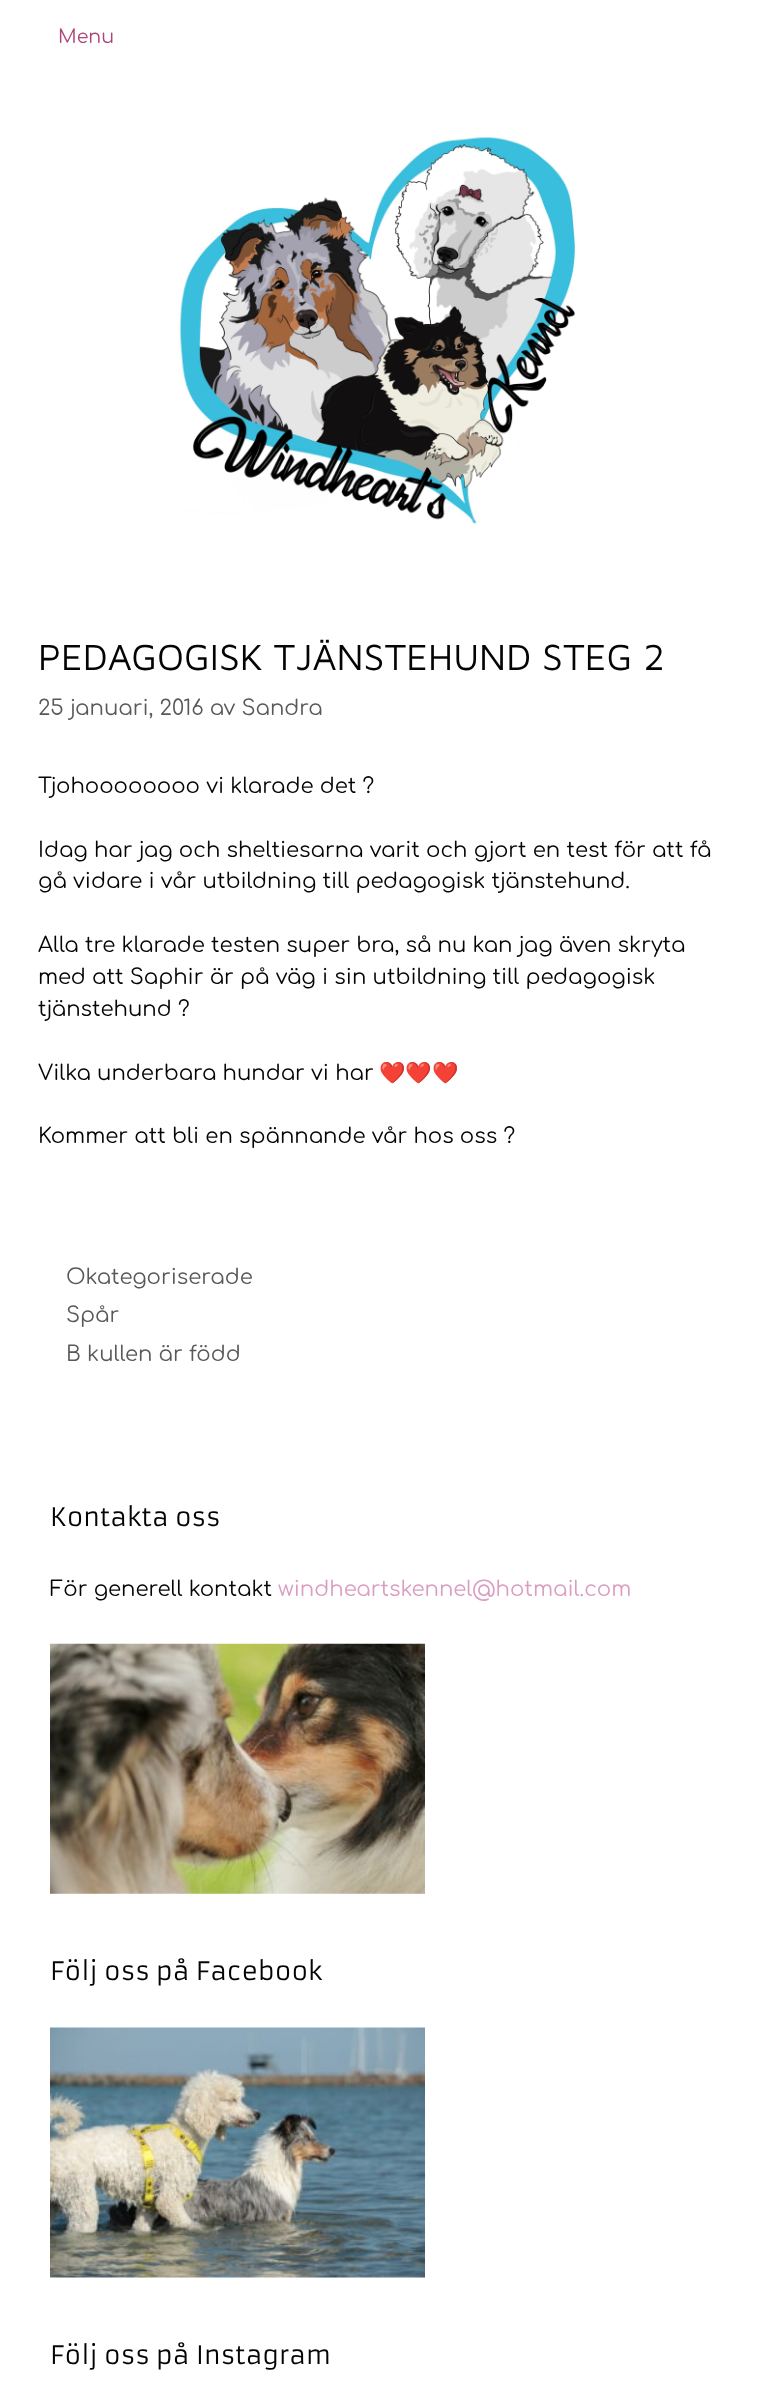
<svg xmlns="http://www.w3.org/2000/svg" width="761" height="2388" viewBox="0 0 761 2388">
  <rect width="100%" height="100%" fill="#fff"/>
  <image x="178" y="137" width="398" height="387" href="img/1.png"/>
  <image x="50" y="1643" width="375" height="251" href="img/2.png"/>
  <image x="50" y="2027" width="375" height="251" href="img/3.png"/>
  <text x="58" y="43" font-family="Comfortaa" font-size="19" fill="#ad457c">Menu</text>
  <text x="38" y="670" font-family="Maven Pro" font-size="37.5" fill="#050303">PEDAGOGISK TJÄNSTEHUND STEG 2</text>
  <text x="38" y="715" font-family="Comfortaa" font-size="21.25" fill="#595959">25 januari, 2016 av Sandra</text>
  <g font-family="Comfortaa" font-size="21.25" fill="#050303">
    <text x="38" y="793">Tjohoooooooo vi klarade det ?</text>
    <text x="38" y="857">Idag har jag och sheltiesarna varit och gjort en test för att få</text>
    <text x="38" y="888">gå vidare i vår utbildning till pedagogisk tjänstehund.</text>
    <text x="38" y="952">Alla tre klarade testen super bra, så nu kan jag även skryta</text>
    <text x="38" y="984">med att Saphir är på väg i sin utbildning till pedagogisk</text>
    <text x="38" y="1016">tjänstehund ?</text>
    <text x="38" y="1080">Vilka underbara hundar vi har</text>
  </g>
  <text x="379" y="1080" font-family="Noto Color Emoji" font-size="21.25" fill="#050303">❤️❤️❤️</text>
  <text x="38" y="1143" font-family="Comfortaa" font-size="21.25" fill="#050303">Kommer att bli en spännande vår hos oss ?</text>
  <g font-family="Comfortaa" font-size="21.25" fill="#595959">
    <text x="66" y="1284">Okategoriserade</text>
    <text x="66" y="1322">Spår</text>
    <text x="66" y="1361">B kullen är född</text>
  </g>
  <text x="50" y="1526" font-family="Armata" font-size="25" fill="#050303">Kontakta oss</text>
  <text x="50" y="1596" font-family="Comfortaa" font-size="21.25" fill="#050303">För generell kontakt</text>
  <text x="278" y="1596" font-family="Comfortaa" font-size="21.25" fill="#db9dc3">windheartskennel@hotmail.com</text>
  <g font-family="Armata" font-size="25" fill="#050303">
    <text x="50" y="1980">Följ oss på Facebook</text>
    <text x="50" y="2364">Följ oss på Instagram</text>
  </g>
</svg>
